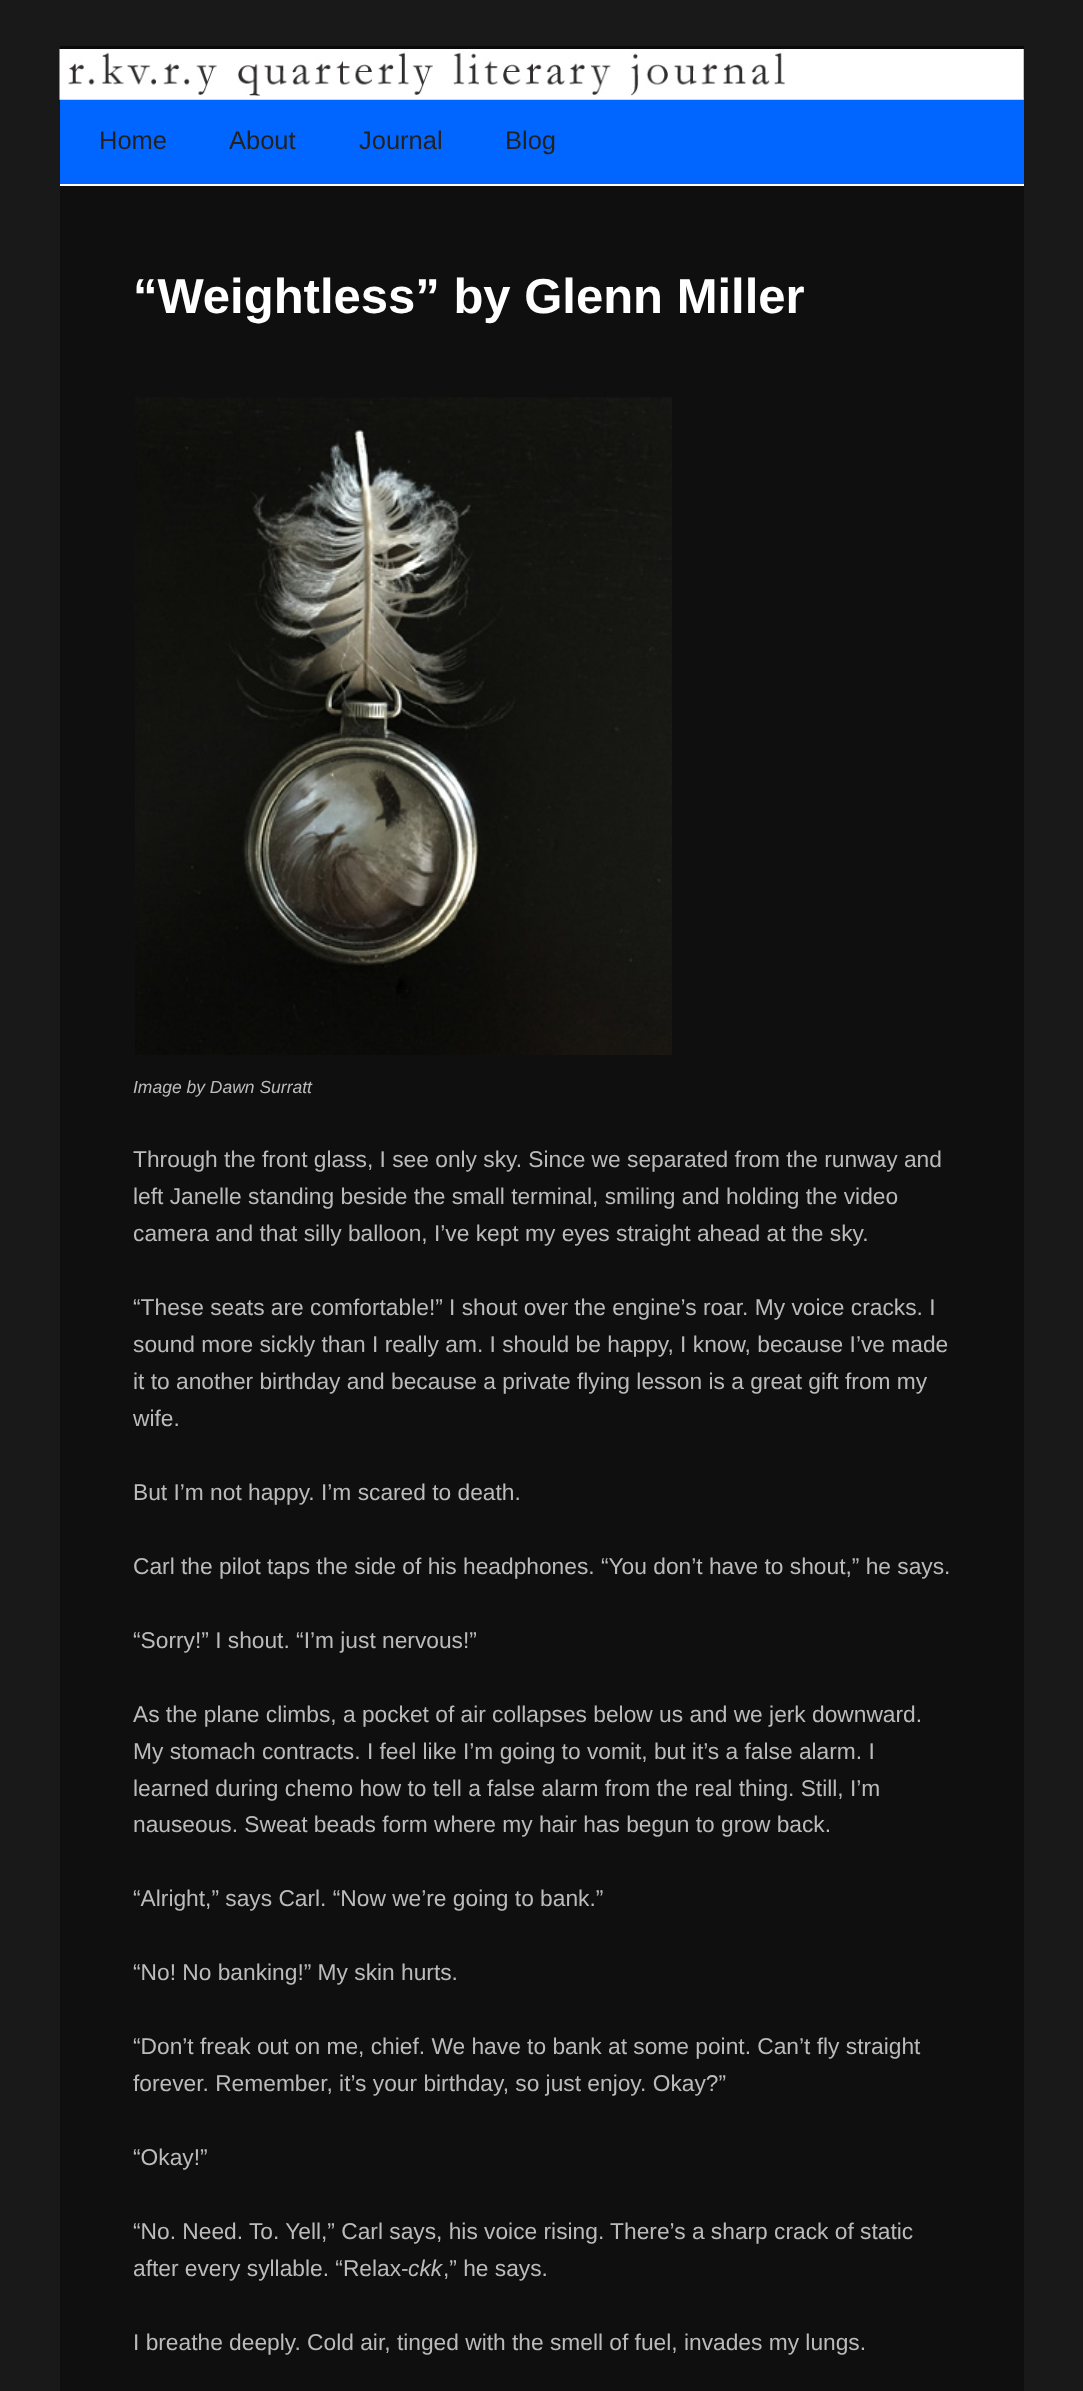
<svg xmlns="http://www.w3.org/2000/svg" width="1083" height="2391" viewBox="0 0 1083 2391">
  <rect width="100%" height="100%" fill="#1a1919"/>
  <path d="M60 50h964v2341H60z" fill="#0f0f0f"/>
  <path d="M60 46h964v4H60z" fill="#0a0a0a"/>
  <path d="M60 98h964v86H60z" fill="#06f"/>
  <image x="59" y="49" width="965" height="51" href="img/1.png"/>
  <path d="M60 184h964v2H60z" fill="#fff"/>
  <image x="135" y="397" width="537" height="658" href="img/2.png"/>
  <g font-family="Liberation Sans" font-size="25.5" fill="#222">
    <text x="99" y="149">Home</text>
    <text x="229" y="149">About</text>
    <text x="359" y="149">Journal</text>
    <text x="505" y="149">Blog</text>
  </g>
  <text x="133" y="313" font-family="Liberation Sans" font-size="49" font-weight="bold" fill="#fff">“Weightless” by Glenn Miller</text>
  <text x="133" y="1093" font-family="Liberation Sans" font-size="17.5" font-style="italic" fill="#bbb">Image by Dawn Surratt</text>
  <g font-family="Liberation Sans" font-size="22.75" fill="#bbb">
    <text x="133" y="1167">Through the front glass, I see only sky. Since we separated from the runway and</text>
    <text x="133" y="1204">left Janelle standing beside the small terminal, smiling and holding the video</text>
    <text x="133" y="1241">camera and that silly balloon, I’ve kept my eyes straight ahead at the sky.</text>
    <text x="133" y="1315">“These seats are comfortable!” I shout over the engine’s roar. My voice cracks. I</text>
    <text x="133" y="1352">sound more sickly than I really am. I should be happy, I know, because I’ve made</text>
    <text x="133" y="1389">it to another birthday and because a private flying lesson is a great gift from my</text>
    <text x="133" y="1426">wife.</text>
    <text x="133" y="1500">But I’m not happy. I’m scared to death.</text>
    <text x="133" y="1574">Carl the pilot taps the side of his headphones. “You don’t have to shout,” he says.</text>
    <text x="133" y="1648">“Sorry!” I shout. “I’m just nervous!”</text>
    <text x="133" y="1722">As the plane climbs, a pocket of air collapses below us and we jerk downward.</text>
    <text x="133" y="1759">My stomach contracts. I feel like I’m going to vomit, but it’s a false alarm. I</text>
    <text x="133" y="1796">learned during chemo how to tell a false alarm from the real thing. Still, I’m</text>
    <text x="133" y="1832">nauseous. Sweat beads form where my hair has begun to grow back.</text>
    <text x="133" y="1906">“Alright,” says Carl. “Now we’re going to bank.”</text>
    <text x="133" y="1980">“No! No banking!” My skin hurts.</text>
    <text x="133" y="2054">“Don’t freak out on me, chief. We have to bank at some point. Can’t fly straight</text>
    <text x="133" y="2091">forever. Remember, it’s your birthday, so just enjoy. Okay?”</text>
    <text x="133" y="2165">“Okay!”</text>
    <text x="133" y="2239">“No. Need. To. Yell,” Carl says, his voice rising. There’s a sharp crack of static</text>
    <text x="133" y="2276">after every syllable. “Relax-</text>
  </g>
  <text x="408" y="2276" font-family="Liberation Sans" font-size="22.75" font-style="italic" fill="#bbb">ckk</text>
  <g font-family="Liberation Sans" font-size="22.75" fill="#bbb">
    <text x="443" y="2276">,” he says.</text>
    <text x="133" y="2350">I breathe deeply. Cold air, tinged with the smell of fuel, invades my lungs.</text>
  </g>
</svg>
